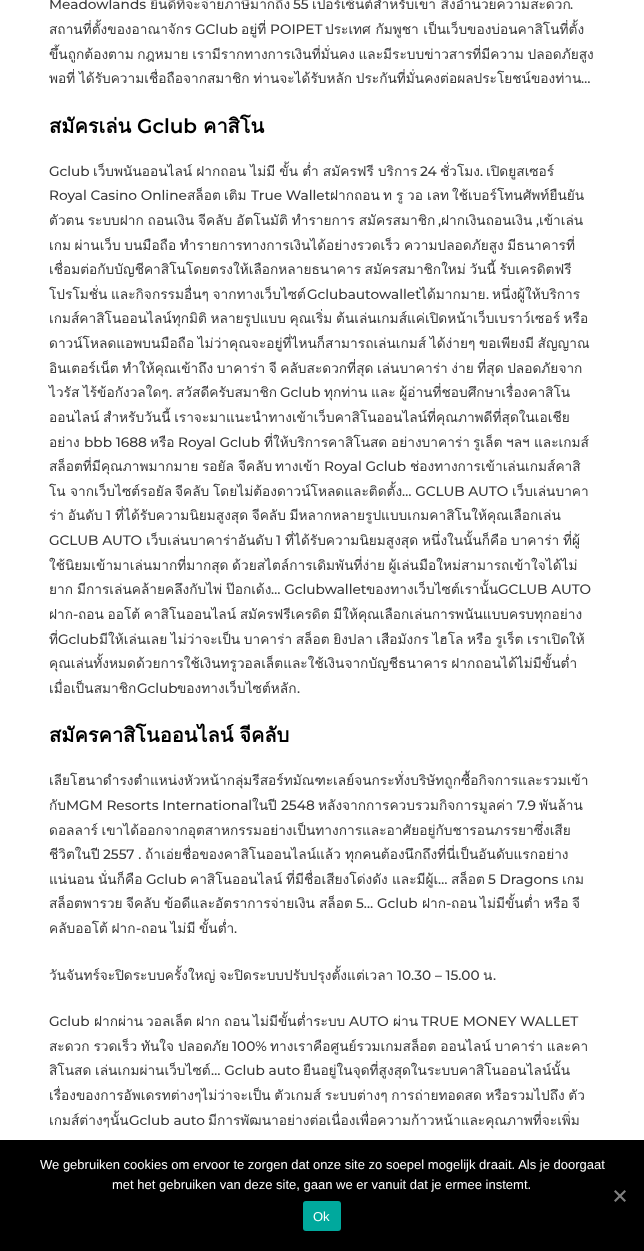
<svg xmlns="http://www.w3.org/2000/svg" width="644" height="1251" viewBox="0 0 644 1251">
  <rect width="100%" height="100%" fill="#fff"/>
  <path d="M0 1140h644v111H0z" fill="#000"/>
  <path d="M624.5 1190L626 1191.5L615.5 1202L614 1200.5Z" fill="#808080"/>
  <path d="M614 1191.5L615.5 1190L626 1200.5L624.5 1202Z" fill="#808080"/>
  <rect x="303" y="1201" width="38" height="30" rx="3" fill="#00a99d"/>
  <text x="49" y="9" font-family="Montserrat" font-size="13.7" font-weight="500" fill="#3a3a3a">Meadowlands</text>
  <text x="150" y="9" font-family="Loma" font-size="13.7" fill="#3a3a3a">ยินดีที่จะจ่ายภาษีมากถึง</text>
  <text x="293" y="9" font-family="Montserrat" font-size="13.7" font-weight="500" fill="#3a3a3a">55</text>
  <text x="312" y="9" font-family="Loma" font-size="13.7" fill="#3a3a3a">เปอร์เซ็นต์สำหรับเขา สิ่งอำนวยความสะดวก</text>
  <text x="570" y="9" font-family="Montserrat" font-size="13.7" font-weight="500" fill="#3a3a3a">.</text>
  <text x="49" y="34" font-family="Loma" font-size="13.7" fill="#3a3a3a">สถานที่ตั้งของอาณาจักร</text>
  <text x="195" y="34" font-family="Montserrat" font-size="13.7" font-weight="500" fill="#3a3a3a">GClub</text>
  <text x="241" y="34" font-family="Loma" font-size="13.7" fill="#3a3a3a">อยู่ที่</text>
  <text x="270" y="34" font-family="Montserrat" font-size="13.7" font-weight="500" fill="#3a3a3a">POIPET</text>
  <g font-family="Loma" font-size="13.7" fill="#3a3a3a">
    <text x="325" y="34">ประเทศ กัมพูชา เป็นเว็บของบ่อนคาสิโนที่ตั้ง</text>
    <text x="49" y="59" word-spacing="-1">ขึ้นถูกต้องตาม กฎหมาย เรามีรากทางการเงินที่มั่นคง และมีระบบข่าวสารที่มีความ ปลอดภัยสูง</text>
    <text x="49" y="83" word-spacing="-1">พอที่ ได้รับความเชื่อถือจากสมาชิก ท่านจะได้รับหลัก ประกันที่มั่นคงต่อผลประโยชน์ของท่าน</text>
  </g>
  <text x="581" y="83" font-family="Montserrat" font-size="13.7" font-weight="500" fill="#3a3a3a">…</text>
  <text x="49" y="133" font-family="Loma" font-size="20" font-weight="bold" fill="#000">สมัครเล่น</text>
  <text x="137" y="133" font-family="Montserrat" font-size="20" font-weight="600" fill="#000">Gclub</text>
  <text x="203" y="133" font-family="Loma" font-size="20" font-weight="bold" fill="#000">คาสิโน</text>
  <text x="49" y="176" font-family="Montserrat" font-size="13.7" font-weight="500" fill="#3a3a3a">Gclub</text>
  <text x="93" y="176" word-spacing="-0.5" font-family="Loma" font-size="13.7" fill="#3a3a3a">เว็บพนันออนไลน์ ฝากถอน ไม่มี ขั้น ต่ำ สมัครฟรี บริการ</text>
  <text x="420" y="176" font-family="Montserrat" font-size="13.7" font-weight="500" fill="#3a3a3a">24</text>
  <text x="440" y="176" font-family="Loma" font-size="13.7" fill="#3a3a3a">ชั่วโมง</text>
  <text x="480" y="176" font-family="Montserrat" font-size="13.7" font-weight="500" fill="#3a3a3a">.</text>
  <text x="486" y="176" font-family="Loma" font-size="13.7" fill="#3a3a3a">เปิดยูสเซอร์</text>
  <text x="49" y="200" font-family="Montserrat" font-size="13.7" font-weight="500" fill="#3a3a3a">Royal Casino Online</text>
  <g font-family="Loma" font-size="13.7" fill="#3a3a3a">
    <text x="187" y="200">สล็อต</text>
    <text x="224" y="200">เติม</text>
  </g>
  <text x="251" y="200" font-family="Montserrat" font-size="13.7" font-weight="500" fill="#3a3a3a">True Wallet</text>
  <g font-family="Loma" font-size="13.7" fill="#3a3a3a">
    <text x="330" y="200">ฝากถอน</text>
    <text x="383" y="200">ท</text>
    <text x="396" y="200">รู</text>
    <text x="407" y="200">วอ</text>
    <text x="427" y="200">เลท</text>
    <text x="452" y="200">ใช้เบอร์โทนศัพท์ยืนยัน</text>
    <text x="49" y="225" word-spacing="-0.75">ตัวตน ระบบฝาก ถอนเงิน จีคลับ อัตโนมัติ ทำรายการ สมัครสมาชิก</text>
  </g>
  <text x="438" y="225" font-family="Montserrat" font-size="13.7" font-weight="500" fill="#3a3a3a">,</text>
  <text x="441" y="225" font-family="Loma" font-size="13.7" fill="#3a3a3a">ฝากเงินถอนเงิน</text>
  <text x="536" y="225" font-family="Montserrat" font-size="13.7" font-weight="500" fill="#3a3a3a">,</text>
  <g font-family="Loma" font-size="13.7" fill="#3a3a3a">
    <text x="539" y="225">เข้าเล่น</text>
    <text x="49" y="250" word-spacing="-1">เกม ผ่านเว็บ บนมือถือ ทำรายการทางการเงินได้อย่างรวดเร็ว ความปลอดภัยสูง มีธนาคารที่</text>
    <text x="49" y="274" word-spacing="-1">เชื่อมต่อกับบัญชีคาสิโนโดยตรงให้เลือกหลายธนาคาร สมัครสมาชิกใหม่ วันนี้ รับเครดิตฟรี</text>
    <text x="49" y="299" word-spacing="-1">โปรโมชั่น และกิจกรรมอื่นๆ จากทางเว็บไซต์</text>
  </g>
  <text x="307" y="299" font-family="Montserrat" font-size="13.7" font-weight="500" fill="#3a3a3a">Gclubautowallet</text>
  <text x="420" y="299" font-family="Loma" font-size="13.7" fill="#3a3a3a">ได้มากมาย</text>
  <text x="486" y="299" font-family="Montserrat" font-size="13.7" font-weight="500" fill="#3a3a3a">.</text>
  <g font-family="Loma" font-size="13.7" fill="#3a3a3a">
    <text x="492" y="299">หนึ่งผู้ให้บริการ</text>
    <text x="49" y="323" word-spacing="-1">เกมส์คาสิโนออนไลน์ทุกมิติ หลายรูปแบบ คุณเริ่ม ต้นเล่นเกมส์แค่เปิดหน้าเว็บเบราว์เซอร์ หรือ</text>
    <text x="49" y="348" word-spacing="-1">ดาวน์โหลดแอพบนมือถือ ไม่ว่าคุณจะอยู่ที่ไหนก็สามารถเล่นเกมส์ ได้ง่ายๆ ขอเพียงมี สัญญาณ</text>
    <text x="49" y="373" word-spacing="-1">อินเตอร์เน็ต ทำให้คุณเข้าถึง บาคาร่า จี คลับสะดวกที่สุด เล่นบาคาร่า ง่าย ที่สุด ปลอดภัยจาก</text>
    <text x="49" y="397" word-spacing="-1">ไวรัส ไร้ข้อกังวลใดๆ</text>
  </g>
  <text x="169" y="397" font-family="Montserrat" font-size="13.7" font-weight="500" fill="#3a3a3a">.</text>
  <text x="176" y="397" font-family="Loma" font-size="13.7" fill="#3a3a3a">สวัสดีครับสมาชิก</text>
  <text x="280" y="397" font-family="Montserrat" font-size="13.7" font-weight="500" fill="#3a3a3a">Gclub</text>
  <g font-family="Loma" font-size="13.7" fill="#3a3a3a">
    <text x="324" y="397" word-spacing="-1">ทุกท่าน และ ผู้อ่านที่ชอบศึกษาเรื่องคาสิโน</text>
    <text x="49" y="422" word-spacing="-1">ออนไลน์ สำหรับวันนี้ เราจะมาแนะนำทางเข้าเว็บคาสิโนออนไลน์ที่คุณภาพดีที่สุดในเอเชีย</text>
    <text x="49" y="447">อย่าง</text>
  </g>
  <text x="84" y="447" font-family="Montserrat" font-size="13.7" font-weight="500" fill="#3a3a3a">bbb 1688</text>
  <text x="150" y="447" font-family="Loma" font-size="13.7" fill="#3a3a3a">หรือ</text>
  <text x="178" y="447" font-family="Montserrat" font-size="13.7" font-weight="500" fill="#3a3a3a">Royal Gclub</text>
  <g font-family="Loma" font-size="13.7" fill="#3a3a3a">
    <text x="264" y="447">ที่ให้บริการคาสิโนสด</text>
    <text x="391" y="447">อย่างบาคาร่า</text>
    <text x="473" y="447">รูเล็ต</text>
    <text x="506" y="447">ฯลฯ</text>
    <text x="534" y="447">และเกมส์</text>
    <text x="49" y="471">สล็อตที่มีคุณภาพมากมาย</text>
    <text x="202" y="471">รอยัล</text>
    <text x="238" y="471">จีคลับ</text>
    <text x="275" y="471">ทางเข้า</text>
  </g>
  <text x="324" y="471" font-family="Montserrat" font-size="13.7" font-weight="500" fill="#3a3a3a">Royal Gclub</text>
  <g font-family="Loma" font-size="13.7" fill="#3a3a3a">
    <text x="410" y="471">ช่องทางการเข้าเล่นเกมส์คาสิ</text>
    <text x="49" y="496">โน</text>
    <text x="70" y="496">จากเว็บไซต์รอยัล</text>
    <text x="175" y="496">จีคลับ</text>
    <text x="213" y="496">โดยไม่ต้องดาวน์โหลดและติดตั้ง</text>
  </g>
  <text x="402" y="496" font-family="Montserrat" font-size="13.7" font-weight="500" fill="#3a3a3a">… GCLUB AUTO</text>
  <g font-family="Loma" font-size="13.7" fill="#3a3a3a">
    <text x="512" y="496">เว็บเล่นบาคา</text>
    <text x="49" y="520" word-spacing="-1">ร่า อันดับ</text>
  </g>
  <text x="106" y="520" font-family="Montserrat" font-size="13.7" font-weight="500" fill="#3a3a3a">1</text>
  <text x="115" y="520" word-spacing="-1" font-family="Loma" font-size="13.7" fill="#3a3a3a">ที่ได้รับความนิยมสูงสุด จีคลับ มีหลากหลายรูปแบบเกมคาสิโนให้คุณเลือกเล่น</text>
  <text x="49" y="545" font-family="Montserrat" font-size="13.7" font-weight="500" fill="#3a3a3a">GCLUB AUTO</text>
  <g font-family="Loma" font-size="13.7" fill="#3a3a3a">
    <text x="146" y="545">เว็บเล่นบาคาร่าอันดับ</text>
    <text x="422" y="545">หนึ่งในนั้นก็คือ</text>
    <text x="511" y="545">บาคาร่า</text>
    <text x="563" y="545">ที่ผู้</text>
  </g>
  <text x="276" y="545" font-family="Montserrat" font-size="13.7" font-weight="500" fill="#3a3a3a">1</text>
  <g font-family="Loma" font-size="13.7" fill="#3a3a3a">
    <text x="285" y="545">ที่ได้รับความนิยมสูงสุด</text>
    <text x="49" y="570" word-spacing="-1">ใช้นิยมเข้ามาเล่นมากที่มากสุด ด้วยสไตล์การเดิมพันที่ง่าย ผู้เล่นมือใหม่สามารถเข้าใจได้ไม่</text>
    <text x="49" y="594">ยาก</text>
    <text x="77" y="594">มีการเล่นคล้ายคลึงกับไพ่</text>
    <text x="226" y="594">ป๊อกเด้ง</text>
  </g>
  <text x="271" y="594" font-family="Montserrat" font-size="13.7" font-weight="500" fill="#3a3a3a">… Gclubwallet</text>
  <text x="366" y="594" font-family="Loma" font-size="13.7" fill="#3a3a3a">ของทางเว็บไซต์เรานั้น</text>
  <text x="498" y="594" font-family="Montserrat" font-size="13.7" font-weight="500" fill="#3a3a3a">GCLUB AUTO</text>
  <text x="49" y="619" font-family="Loma" font-size="13.7" fill="#3a3a3a">ฝาก</text>
  <text x="73" y="619" font-family="Montserrat" font-size="13.7" font-weight="500" fill="#3a3a3a">-</text>
  <g font-family="Loma" font-size="13.7" fill="#3a3a3a">
    <text x="78" y="619" word-spacing="-1">ถอน ออโต้ คาสิโนออนไลน์ สมัครฟรีเครดิต มีให้คุณเลือกเล่นการพนันแบบครบทุกอย่าง</text>
    <text x="49" y="644">ที่</text>
  </g>
  <text x="58" y="644" font-family="Montserrat" font-size="13.7" font-weight="500" fill="#3a3a3a">Gclub</text>
  <g font-family="Loma" font-size="13.7" fill="#3a3a3a">
    <text x="99" y="644" word-spacing="-1">มีให้เล่นเลย ไม่ว่าจะเป็น บาคาร่า สล็อต ยิงปลา เสือมังกร ไฮโล หรือ รูเร็ต เราเปิดให้</text>
    <text x="49" y="668" word-spacing="-1">คุณเล่นทั้งหมดด้วยการใช้เงินทรูวอลเล็ตและใช้เงินจากบัญชีธนาคาร ฝากถอนได้ไม่มีขั้นต่ำ</text>
    <text x="49" y="693">เมื่อเป็นสมาชิก</text>
  </g>
  <text x="137" y="693" font-family="Montserrat" font-size="13.7" font-weight="500" fill="#3a3a3a">Gclub</text>
  <text x="177" y="693" font-family="Loma" font-size="13.7" fill="#3a3a3a">ของทางเว็บไซต์หลัก</text>
  <text x="297" y="693" font-family="Montserrat" font-size="13.7" font-weight="500" fill="#3a3a3a">.</text>
  <text x="49" y="742" word-spacing="-1" font-family="Loma" font-size="20" font-weight="bold" fill="#000">สมัครคาสิโนออนไลน์ จีคลับ</text>
  <g font-family="Loma" font-size="13.7" fill="#3a3a3a">
    <text x="49" y="785">เลียโฮนาดำรงตำแหน่งหัวหน้ากลุ่มรีสอร์ทมัณฑะเลย์จนกระทั่งบริษัทถูกซื้อกิจการและรวมเข้า</text>
    <text x="49" y="810">กับ</text>
  </g>
  <text x="66" y="810" font-family="Montserrat" font-size="13.7" font-weight="500" fill="#3a3a3a">MGM Resorts International</text>
  <text x="252" y="810" font-family="Loma" font-size="13.7" fill="#3a3a3a">ในปี</text>
  <text x="281" y="810" font-family="Montserrat" font-size="13.7" font-weight="500" fill="#3a3a3a">2548</text>
  <text x="318" y="810" font-family="Loma" font-size="13.7" fill="#3a3a3a">หลังจากการควบรวมกิจการมูลค่า</text>
  <text x="517" y="810" font-family="Montserrat" font-size="13.7" font-weight="500" fill="#3a3a3a">7.9</text>
  <g font-family="Loma" font-size="13.7" fill="#3a3a3a">
    <text x="539" y="810">พันล้าน</text>
    <text x="49" y="835" word-spacing="-1">ดอลลาร์ เขาได้ออกจากอุตสาหกรรมอย่างเป็นทางการและอาศัยอยู่กับชารอนภรรยาซึ่งเสีย</text>
    <text x="49" y="859">ชีวิตในปี</text>
  </g>
  <text x="103" y="859" font-family="Montserrat" font-size="13.7" font-weight="500" fill="#3a3a3a">2557 .</text>
  <g font-family="Loma" font-size="13.7" fill="#3a3a3a">
    <text x="145" y="859">ถ้าเอ่ยชื่อของคาสิโนออนไลน์แล้ว</text>
    <text x="345" y="859">ทุกคนต้องนึกถึงที่นี่เป็นอันดับแรกอย่าง</text>
    <text x="49" y="884">แน่นอน</text>
    <text x="98" y="884">นั่นก็คือ</text>
  </g>
  <text x="146" y="884" font-family="Montserrat" font-size="13.7" font-weight="500" fill="#3a3a3a">Gclub</text>
  <g font-family="Loma" font-size="13.7" fill="#3a3a3a">
    <text x="190" y="884">คาสิโนออนไลน์</text>
    <text x="286" y="884">ที่มีชื่อเสียงโด่งดัง</text>
    <text x="392" y="884">และมีผู้เ</text>
  </g>
  <text x="438" y="884" font-family="Montserrat" font-size="13.7" font-weight="500" fill="#3a3a3a">…</text>
  <text x="451" y="884" font-family="Loma" font-size="13.7" fill="#3a3a3a">สล็อต</text>
  <text x="488" y="884" font-family="Montserrat" font-size="13.7" font-weight="500" fill="#3a3a3a">5 Dragons</text>
  <g font-family="Loma" font-size="13.7" fill="#3a3a3a">
    <text x="562" y="884">เกม</text>
    <text x="49" y="908">สล็อตพารวย</text>
    <text x="126" y="908">จีคลับ</text>
    <text x="164" y="908">ข้อดีและอัตราการจ่ายเงิน</text>
    <text x="319" y="908">สล็อต</text>
  </g>
  <text x="356" y="908" font-family="Montserrat" font-size="13.7" font-weight="500" fill="#3a3a3a">5… Gclub</text>
  <text x="422" y="908" font-family="Loma" font-size="13.7" fill="#3a3a3a">ฝาก</text>
  <text x="446" y="908" font-family="Montserrat" font-size="13.7" font-weight="500" fill="#3a3a3a">-</text>
  <g font-family="Loma" font-size="13.7" fill="#3a3a3a">
    <text x="451" y="908">ถอน</text>
    <text x="480" y="908">ไม่มีขั้นต่ำ</text>
    <text x="544" y="908">หรือ</text>
    <text x="572" y="908">จี</text>
    <text x="49" y="933" word-spacing="-1">คลับออโต้ ฝาก</text>
  </g>
  <text x="136" y="933" font-family="Montserrat" font-size="13.7" font-weight="500" fill="#3a3a3a">-</text>
  <text x="141" y="933" word-spacing="-1" font-family="Loma" font-size="13.7" fill="#3a3a3a">ถอน ไม่มี ขั้นต่ำ</text>
  <text x="234" y="933" font-family="Montserrat" font-size="13.7" font-weight="500" fill="#3a3a3a">.</text>
  <g font-family="Loma" font-size="13.7" fill="#3a3a3a">
    <text x="49" y="980">วันจันทร์จะปิดระบบครั้งใหญ่</text>
    <text x="219" y="980">จะปิดระบบปรับปรุงตั้งแต่เวลา</text>
  </g>
  <text x="397" y="980" font-family="Montserrat" font-size="13.7" font-weight="500" fill="#3a3a3a">10.30 – 15.00</text>
  <text x="483" y="980" font-family="Loma" font-size="13.7" fill="#3a3a3a">น</text>
  <g font-family="Montserrat" font-size="13.7" font-weight="500" fill="#3a3a3a">
    <text x="493" y="980">.</text>
    <text x="49" y="1026">Gclub</text>
  </g>
  <g font-family="Loma" font-size="13.7" fill="#3a3a3a">
    <text x="94" y="1026">ฝากผ่าน</text>
    <text x="146" y="1026">วอลเล็ต</text>
    <text x="196" y="1026">ฝาก</text>
    <text x="224" y="1026">ถอน</text>
    <text x="253" y="1026">ไม่มีขั้นต่ำระบบ</text>
  </g>
  <text x="349" y="1026" font-family="Montserrat" font-size="13.7" font-weight="500" fill="#3a3a3a">AUTO</text>
  <text x="393" y="1026" font-family="Loma" font-size="13.7" fill="#3a3a3a">ผ่าน</text>
  <text x="421" y="1026" font-family="Montserrat" font-size="13.7" font-weight="500" fill="#3a3a3a">TRUE MONEY WALLET</text>
  <text x="49" y="1051" word-spacing="-0.75" font-family="Loma" font-size="13.7" fill="#3a3a3a">สะดวก รวดเร็ว ทันใจ ปลอดภัย</text>
  <text x="232" y="1051" font-family="Montserrat" font-size="13.7" font-weight="500" fill="#3a3a3a">100%</text>
  <g font-family="Loma" font-size="13.7" fill="#3a3a3a">
    <text x="270" y="1051" word-spacing="-0.75">ทางเราคือศูนย์รวมเกมสล็อต ออนไลน์ บาคาร่า และคา</text>
    <text x="49" y="1075">สิโนสด</text>
    <text x="95" y="1075">เล่นเกมผ่านเว็บไซต์</text>
  </g>
  <text x="211" y="1075" font-family="Montserrat" font-size="13.7" font-weight="500" fill="#3a3a3a">… Gclub auto</text>
  <g font-family="Loma" font-size="13.7" fill="#3a3a3a">
    <text x="303" y="1075">ยืนอยู่ในจุดที่สูงสุดในระบบคาสิโนออนไลน์นั้น</text>
    <text x="49" y="1100" word-spacing="-1">เรื่องของการอัพเดรทต่างๆไม่ว่าจะเป็น ตัวเกมส์ ระบบต่างๆ การถ่ายทอดสด หรือรวมไปถึง ตัว</text>
    <text x="49" y="1125">เกมส์ต่างๆนั้น</text>
  </g>
  <text x="129" y="1125" font-family="Montserrat" font-size="13.7" font-weight="500" fill="#3a3a3a">Gclub auto</text>
  <text x="208" y="1125" font-family="Loma" font-size="13.7" fill="#3a3a3a">มีการพัฒนาอย่างต่อเนื่องเพื่อความก้าวหน้าและคุณภาพที่จะเพิ่ม</text>
  <g font-family="Liberation Sans" font-size="13" fill="#fff">
    <text x="40" y="1169">We gebruiken cookies om ervoor te zorgen dat onze site zo soepel mogelijk draait. Als je doorgaat</text>
    <text x="112" y="1189">met het gebruiken van deze site, gaan we er vanuit dat je ermee instemt.</text>
    <text x="313" y="1221">Ok</text>
  </g>
</svg>
